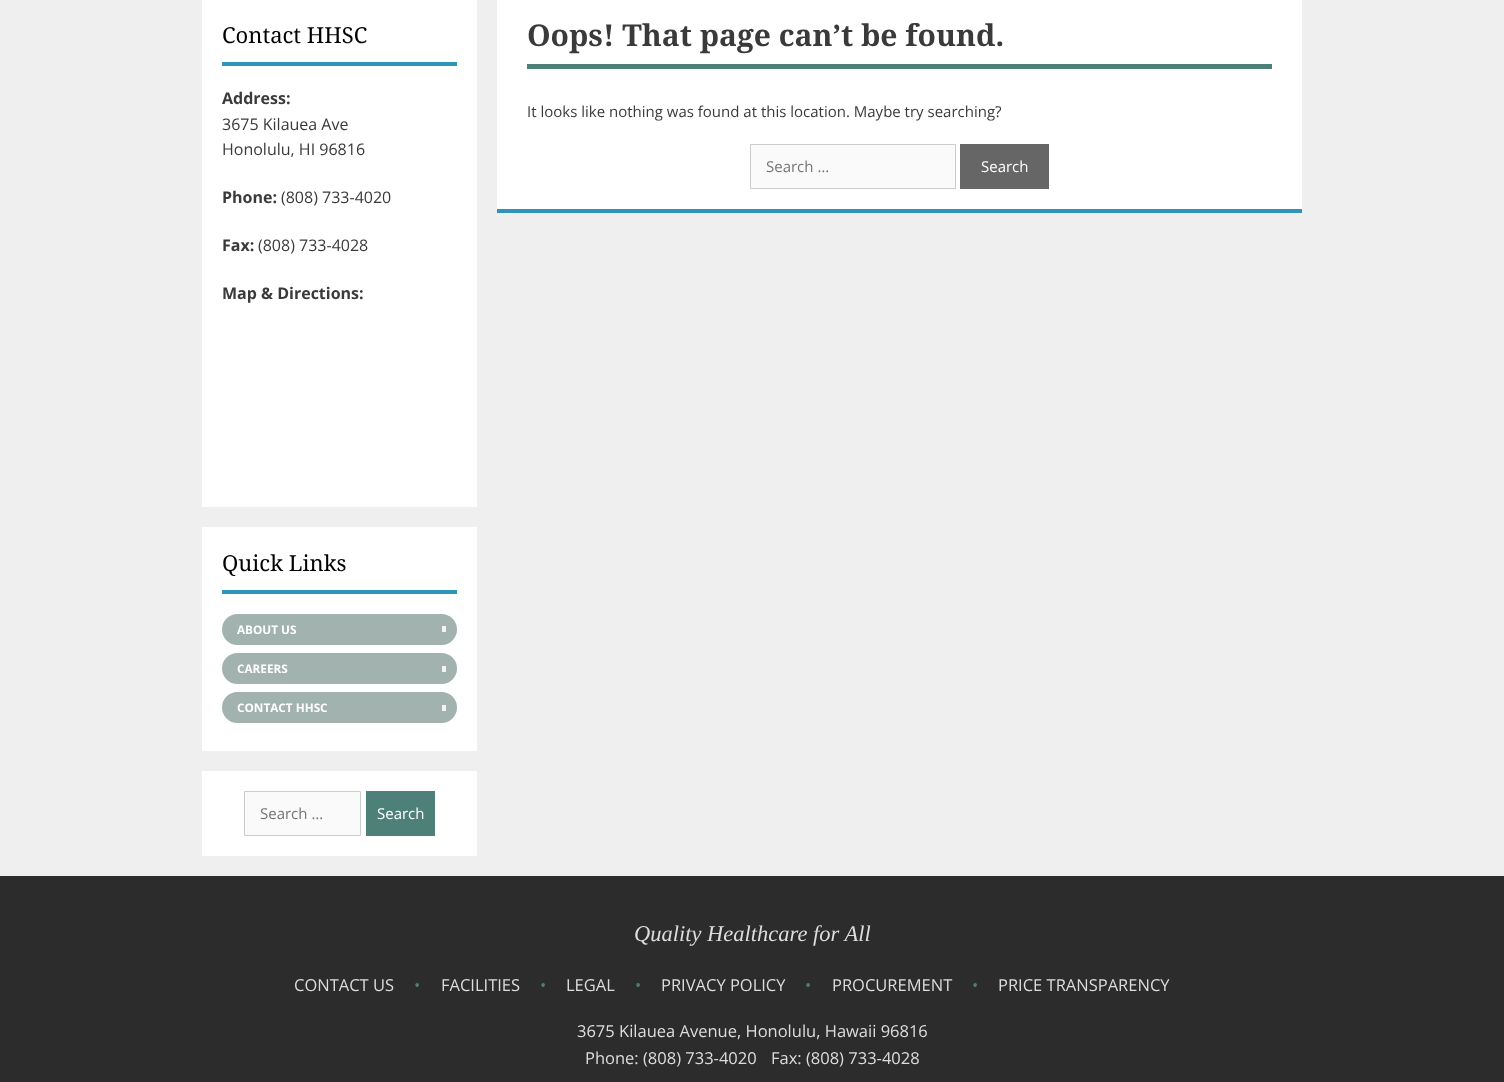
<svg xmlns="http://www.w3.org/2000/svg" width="1504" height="1082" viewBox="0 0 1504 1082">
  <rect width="100%" height="100%" fill="#efefef"/>
  <path d="M202 0h275v507H202z" fill="#fff"/>
  <path d="M222 62h235v4H222z" fill="#3093ba"/>
  <path d="M202 527h275v224H202z" fill="#fff"/>
  <path d="M222 590h235v4H222z" fill="#3093ba"/>
  <rect x="222" y="614" width="235" height="31" rx="15.5" fill="#a1b2af"/>
  <path d="M442 626h4v6H442z" fill="#f3f3f2"/>
  <rect x="222" y="653" width="235" height="31" rx="15.5" fill="#a1b2af"/>
  <path d="M442 666h4v6H442z" fill="#f3f3f2"/>
  <rect x="222" y="692" width="235" height="31" rx="15.5" fill="#a1b2af"/>
  <path d="M442 705h4v6H442z" fill="#f3f3f2"/>
  <path d="M202 771h275v85H202z" fill="#fff"/>
  <path d="M244.5 791.5h116v44H244.5z" fill="#fafafa" stroke="#ccc"/>
  <path d="M366 791h69v45H366z" fill="#4c8078"/>
  <path d="M497 0h805v209H497z" fill="#fff"/>
  <path d="M497 209h805v4H497z" fill="#3093ba"/>
  <path d="M527 64h745v5H527z" fill="#4c8078"/>
  <path d="M750.5 144.5h205v44H750.5z" fill="#fafafa" stroke="#ccc"/>
  <path d="M960 144h89v45H960z" fill="#666"/>
  <path d="M0 876h1504v206H0z" fill="#2c2c2c"/>
  <text x="222" y="43" font-family="Droid Serif" font-size="22" fill="#000">Contact HHSC</text>
  <text x="222" y="104" font-family="Open Sans" font-size="16" font-weight="bold" fill="#3a3a3a">Address:</text>
  <g font-family="Open Sans" font-size="16" fill="#3a3a3a">
    <text x="222" y="130">3675 Kilauea Ave</text>
    <text x="222" y="155">Honolulu, HI 96816</text>
  </g>
  <text x="222" y="203" font-family="Open Sans" font-size="16" font-weight="bold" fill="#3a3a3a">Phone:</text>
  <text x="281" y="203" font-family="Open Sans" font-size="16" fill="#3a3a3a">(808) 733-4020</text>
  <text x="222" y="251" font-family="Open Sans" font-size="16" font-weight="bold" fill="#3a3a3a">Fax:</text>
  <text x="258" y="251" font-family="Open Sans" font-size="16" fill="#3a3a3a">(808) 733-4028</text>
  <text x="222" y="299" font-family="Open Sans" font-size="16" font-weight="bold" fill="#3a3a3a">Map &amp; Directions:</text>
  <text x="222" y="571" font-family="Droid Serif" font-size="22" fill="#000">Quick Links</text>
  <g font-family="Open Sans" font-size="11.75" font-weight="bold" fill="#fff">
    <text x="237" y="634">ABOUT US</text>
    <text x="237" y="673">CAREERS</text>
    <text x="237" y="712">CONTACT HHSC</text>
  </g>
  <text x="260" y="819" font-family="Open Sans" font-size="15" fill="#757575">Search …</text>
  <text x="377" y="819" font-family="Open Sans" font-size="15" fill="#fff">Search</text>
  <text x="527" y="46" font-family="Droid Serif" font-size="30" font-weight="bold" fill="#3a3a3a">Oops! That page can’t be found.</text>
  <text x="527" y="117" font-family="Open Sans" font-size="15" fill="#3a3a3a">It looks like nothing was found at this location. Maybe try searching?</text>
  <text x="766" y="172" font-family="Open Sans" font-size="15" fill="#757575">Search …</text>
  <text x="981" y="172" font-family="Open Sans" font-size="15" fill="#fff">Search</text>
  <text x="634" y="941" font-family="Liberation Serif" font-size="22.5" font-style="italic" fill="#ddd">Quality Healthcare for All</text>
  <text x="294" y="991" font-family="Open Sans" font-size="16.5" fill="#ddd">CONTACT US</text>
  <text x="414" y="991" font-family="Open Sans" font-size="16.5" fill="#4c8078">•</text>
  <text x="441" y="991" font-family="Open Sans" font-size="16.5" fill="#ddd">FACILITIES</text>
  <text x="540" y="991" font-family="Open Sans" font-size="16.5" fill="#4c8078">•</text>
  <text x="566" y="991" font-family="Open Sans" font-size="16.5" fill="#ddd">LEGAL</text>
  <text x="635" y="991" font-family="Open Sans" font-size="16.5" fill="#4c8078">•</text>
  <text x="661" y="991" font-family="Open Sans" font-size="16.5" fill="#ddd">PRIVACY POLICY</text>
  <text x="805" y="991" font-family="Open Sans" font-size="16.5" fill="#4c8078">•</text>
  <text x="832" y="991" font-family="Open Sans" font-size="16.5" fill="#ddd">PROCUREMENT</text>
  <text x="972" y="991" font-family="Open Sans" font-size="16.5" fill="#4c8078">•</text>
  <g font-family="Open Sans" font-size="16.5" fill="#ddd">
    <text x="998" y="991">PRICE TRANSPARENCY</text>
    <text x="577" y="1037">3675 Kilauea Avenue, Honolulu, Hawaii 96816</text>
    <text x="585" y="1064">Phone: (808) 733-4020</text>
    <text x="771" y="1064">Fax: (808) 733-4028</text>
  </g>
</svg>
